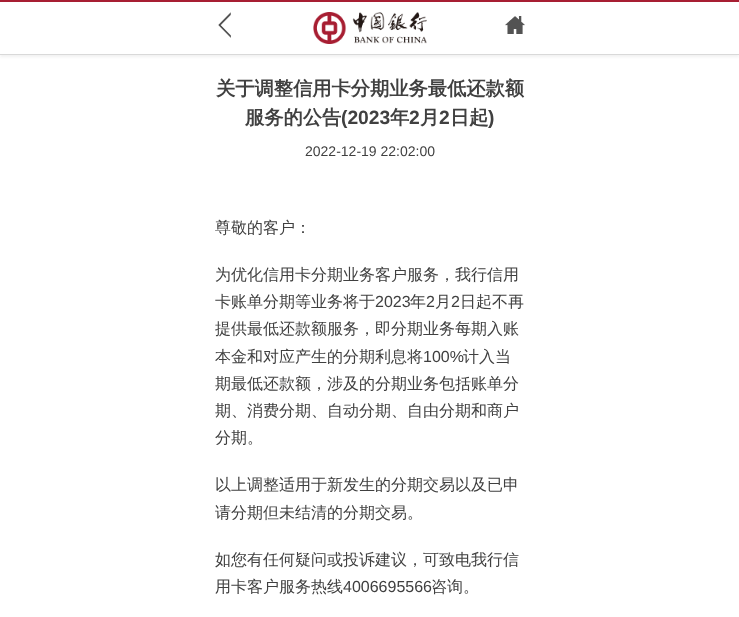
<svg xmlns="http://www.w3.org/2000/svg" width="739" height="617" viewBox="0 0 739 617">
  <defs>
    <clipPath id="clip1"><path d="M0 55h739v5H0z"/></clipPath>
  </defs>
  <rect width="100%" height="100%" fill="#fff"/>
  <g clip-path="url(#clip1)">
    <path d="M0 2h739v55H0z" fill="#f1f1f1" filter="blur(1.5px)"/>
  </g>
  <path d="M0 0h739v2H0z" fill="#a71e32"/>
  <path d="M0 54h739v1H0z" fill="#d9d9d9"/>
  <image x="218" y="12" width="13" height="26" href="img/1.png"/>
  <image x="313" y="12" width="114" height="32" href="img/2.png"/>
  <image x="505" y="16" width="20" height="18" href="img/3.png"/>
  <g font-family="WenQuanYi Zen Hei" font-size="19.25" font-weight="bold" fill="#404040">
    <text x="216" y="95">关于调整信用卡分期业务最低还款额</text>
    <text x="245" y="124">服务的公告</text>
  </g>
  <text x="341" y="124" font-family="Liberation Sans" font-size="19.25" font-weight="bold" fill="#404040">(2023</text>
  <text x="390" y="124" font-family="WenQuanYi Zen Hei" font-size="19.25" font-weight="bold" fill="#404040">年</text>
  <text x="409" y="124" font-family="Liberation Sans" font-size="19.25" font-weight="bold" fill="#404040">2</text>
  <text x="420" y="124" font-family="WenQuanYi Zen Hei" font-size="19.25" font-weight="bold" fill="#404040">月</text>
  <text x="439" y="124" font-family="Liberation Sans" font-size="19.25" font-weight="bold" fill="#404040">2</text>
  <text x="450" y="124" font-family="WenQuanYi Zen Hei" font-size="19.25" font-weight="bold" fill="#404040">日起</text>
  <text x="488" y="124" font-family="Liberation Sans" font-size="19.25" font-weight="bold" fill="#404040">)</text>
  <text x="305" y="156" font-family="Liberation Sans" font-size="14" fill="#404040">2022-12-19 22:02:00</text>
  <g font-family="WenQuanYi Zen Hei" font-size="16" font-weight="500" fill="#404040">
    <text x="215" y="233">尊敬的客户：</text>
    <text x="215" y="280">为优化信用卡分期业务客户服务，我行信用</text>
    <text x="215" y="307">卡账单分期等业务将于</text>
  </g>
  <text x="375" y="307" font-family="Liberation Sans" font-size="16" fill="#404040">2023</text>
  <text x="410" y="307" font-family="WenQuanYi Zen Hei" font-size="16" font-weight="500" fill="#404040">年</text>
  <text x="426" y="307" font-family="Liberation Sans" font-size="16" fill="#404040">2</text>
  <text x="435" y="307" font-family="WenQuanYi Zen Hei" font-size="16" font-weight="500" fill="#404040">月</text>
  <text x="451" y="307" font-family="Liberation Sans" font-size="16" fill="#404040">2</text>
  <g font-family="WenQuanYi Zen Hei" font-size="16" font-weight="500" fill="#404040">
    <text x="460" y="307">日起不再</text>
    <text x="215" y="334">提供最低还款额服务，即分期业务每期入账</text>
    <text x="215" y="362">本金和对应产生的分期利息将</text>
  </g>
  <text x="423" y="362" font-family="Liberation Sans" font-size="16" fill="#404040">100%</text>
  <g font-family="WenQuanYi Zen Hei" font-size="16" font-weight="500" fill="#404040">
    <text x="463" y="362">计入当</text>
    <text x="215" y="389">期最低还款额，涉及的分期业务包括账单分</text>
    <text x="215" y="416">期、消费分期、自动分期、自由分期和商户</text>
    <text x="215" y="443">分期。</text>
    <text x="215" y="490">以上调整适用于新发生的分期交易以及已申</text>
    <text x="215" y="518">请分期但未结清的分期交易。</text>
    <text x="215" y="565">如您有任何疑问或投诉建议，可致电我行信</text>
    <text x="215" y="592">用卡客户服务热线</text>
  </g>
  <text x="343" y="592" font-family="Liberation Sans" font-size="16" fill="#404040">4006695566</text>
  <text x="431" y="592" font-family="WenQuanYi Zen Hei" font-size="16" font-weight="500" fill="#404040">咨询。</text>
</svg>
